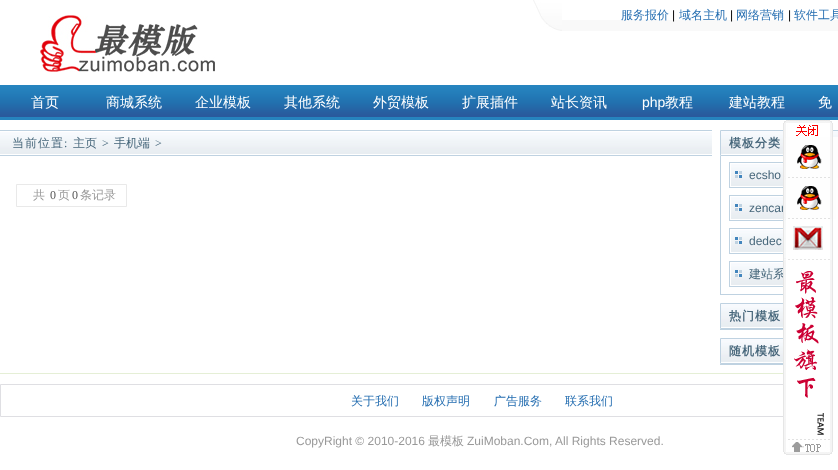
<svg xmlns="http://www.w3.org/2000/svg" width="838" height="470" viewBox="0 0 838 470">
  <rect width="100%" height="100%" fill="#fff"/>
  <image x="40" y="15" width="175" height="57" href="img/1.png"/>
  <image x="533" y="0" width="29" height="31" href="img/2.png"/>
  <path d="M562 20h276v11H562z" fill="#f9f9f9"/>
  <image x="0" y="85" width="838" height="35" href="img/3.png"/>
  <image x="0" y="132" width="712" height="22" href="img/4.png"/>
  <path d="M0 130h712v1H0z" fill="#bfd2e1"/>
  <path d="M0 155h712v1H0z" fill="#bfd2e1"/>
  <path d="M16.5 184.5h110v22H16.5z" fill="none" stroke="#e9e9e9"/>
  <image x="721" y="131" width="117" height="23" href="img/5.png"/>
  <path d="M720 294h63v1H720z" fill="#bfd2e1"/>
  <path d="M720.5 130.5h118v25H720.5z" fill="none" stroke="#bfd2e1"/>
  <path d="M720 156h1v138H720z" fill="#bfd2e1"/>
  <image x="729" y="162" width="54" height="26" href="img/6.png"/>
  <image x="729" y="195" width="54" height="26" href="img/6.png"/>
  <image x="729" y="228" width="54" height="26" href="img/6.png"/>
  <image x="729" y="261" width="54" height="26" href="img/6.png"/>
  <image x="721" y="304" width="62" height="23" href="img/7.png"/>
  <path d="M720 329h63v1H720z" fill="#bfd2e1"/>
  <path d="M720.5 303.5h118v25H720.5z" fill="none" stroke="#bfd2e1"/>
  <image x="721" y="339" width="62" height="23" href="img/7.png"/>
  <path d="M720 364h63v1H720z" fill="#bfd2e1"/>
  <path d="M720.5 338.5h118v25H720.5z" fill="none" stroke="#bfd2e1"/>
  <path d="M0 373h783v1H0z" fill="#e5efd6"/>
  <path d="M0.5 384.5h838v32H0.5z" fill="none" stroke="#dfdfe3"/>
  <image x="783" y="120" width="50" height="17" href="img/8.png"/>
  <image x="783" y="137" width="55" height="41" href="img/9.png"/>
  <image x="783" y="219" width="53" height="41" href="img/11.png"/>
  <image x="783" y="440" width="50" height="15" href="img/13.png"/>
  <text x="621" y="19" font-family="WenQuanYi Zen Hei" font-size="12" font-weight="500" fill="#256eb1">服务报价</text>
  <text x="672" y="19" font-family="Liberation Sans" font-size="12" fill="#000">|</text>
  <text x="679" y="19" font-family="WenQuanYi Zen Hei" font-size="12" font-weight="500" fill="#256eb1">域名主机</text>
  <text x="730" y="19" font-family="Liberation Sans" font-size="12" fill="#000">|</text>
  <text x="736" y="19" font-family="WenQuanYi Zen Hei" font-size="12" font-weight="500" fill="#256eb1">网络营销</text>
  <text x="788" y="19" font-family="Liberation Sans" font-size="12" fill="#000">|</text>
  <text x="794" y="19" font-family="WenQuanYi Zen Hei" font-size="12" font-weight="500" fill="#256eb1">软件工具</text>
  <g font-family="WenQuanYi Zen Hei" font-size="14" font-weight="500" fill="#fff">
    <text x="31" y="107">首页</text>
    <text x="106" y="107">商城系统</text>
    <text x="195" y="107">企业模板</text>
    <text x="284" y="107">其他系统</text>
    <text x="373" y="107">外贸模板</text>
    <text x="462" y="107">扩展插件</text>
    <text x="551" y="107">站长资讯</text>
  </g>
  <text x="642" y="107" font-family="Liberation Sans" font-size="14" fill="#fff">php</text>
  <g font-family="WenQuanYi Zen Hei" font-size="14" font-weight="500" fill="#fff">
    <text x="665" y="107">教程</text>
    <text x="729" y="107">建站教程</text>
    <text x="818" y="107">免</text>
  </g>
  <text x="12" y="147" font-family="WenQuanYi Zen Hei" font-size="12" font-weight="500" letter-spacing="1" fill="#47677b">当前位置</text>
  <text x="64" y="147" font-family="Liberation Serif" font-size="12" letter-spacing="1" fill="#47677b">:</text>
  <text x="73" y="147" font-family="WenQuanYi Zen Hei" font-size="12" font-weight="500" fill="#47677b">主页</text>
  <text x="102" y="147" font-family="Liberation Serif" font-size="12" fill="#47677b">&gt;</text>
  <text x="114" y="147" font-family="WenQuanYi Zen Hei" font-size="12" font-weight="500" fill="#47677b">手机端</text>
  <text x="155" y="147" font-family="Liberation Serif" font-size="12" fill="#47677b">&gt;</text>
  <text x="33" y="199" font-family="WenQuanYi Zen Hei" font-size="12" font-weight="500" fill="#999">共</text>
  <text x="50" y="199" font-family="Liberation Serif" font-size="12" fill="#555">0</text>
  <text x="58" y="199" font-family="WenQuanYi Zen Hei" font-size="12" font-weight="500" fill="#999">页</text>
  <text x="72" y="199" font-family="Liberation Serif" font-size="12" fill="#555">0</text>
  <text x="80" y="199" font-family="WenQuanYi Zen Hei" font-size="12" font-weight="500" fill="#999">条记录</text>
  <text x="729" y="147" font-family="WenQuanYi Zen Hei" font-size="12" font-weight="bold" letter-spacing="1" fill="#47677b">模板分类</text>
  <g font-family="Liberation Sans" font-size="12" fill="#47677b">
    <text x="749" y="179">ecsho</text>
    <text x="749" y="212">zencar</text>
    <text x="749" y="245">dedec</text>
  </g>
  <text x="749" y="278" font-family="WenQuanYi Zen Hei" font-size="12" font-weight="500" fill="#47677b">建站系</text>
  <g font-family="WenQuanYi Zen Hei" font-size="12" font-weight="bold" letter-spacing="1" fill="#47677b">
    <text x="729" y="320">热门模板</text>
    <text x="729" y="355">随机模板</text>
  </g>
  <g font-family="WenQuanYi Zen Hei" font-size="12" font-weight="500" fill="#256eb1">
    <text x="351" y="405">关于我们</text>
    <text x="422" y="405">版权声明</text>
    <text x="494" y="405">广告服务</text>
    <text x="565" y="405">联系我们</text>
  </g>
  <text x="296" y="445" font-family="Liberation Sans" font-size="12" fill="#999">CopyRight © 2010-2016</text>
  <text x="428" y="445" font-family="WenQuanYi Zen Hei" font-size="12" font-weight="500" fill="#999">最模板</text>
  <text x="467" y="445" font-family="Liberation Sans" font-size="12" fill="#999">ZuiMoban.Com, All Rights Reserved.</text>
  <image x="783" y="178" width="53" height="41" href="img/10.png"/>
  <image x="783" y="260" width="55" height="180" href="img/12.png"/>
</svg>
